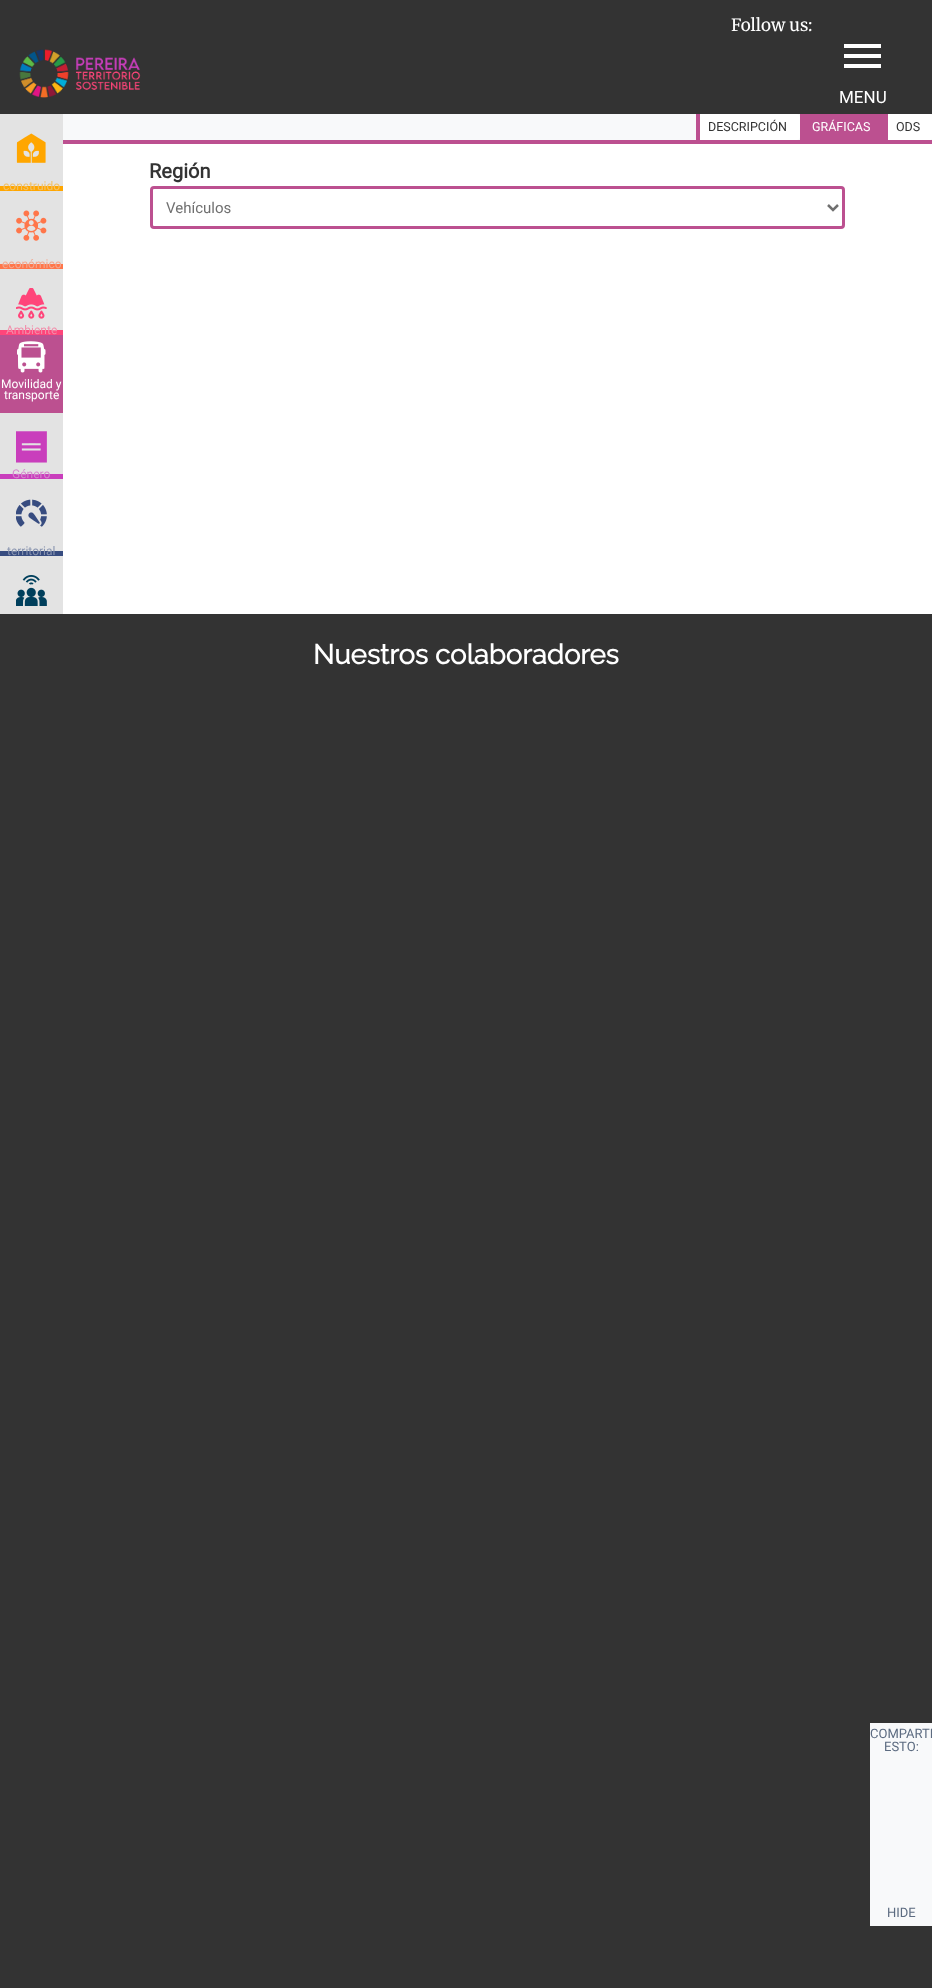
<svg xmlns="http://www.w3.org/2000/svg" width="932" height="1988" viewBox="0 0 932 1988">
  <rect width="100%" height="100%" fill="#333"/>
  <image x="19" y="49" width="122" height="49" href="img/1.png"/>
  <path d="M844 44h37v4H844z" fill="#fff"/>
  <path d="M844 54h37v4H844z" fill="#fff"/>
  <path d="M844 64h37v4H844z" fill="#fff"/>
  <path d="M63 144h869v470H63z" fill="#fff"/>
  <path d="M63 114h869v26H63z" fill="#f8f9fa"/>
  <rect x="696" y="114" width="104" height="26" rx="4" fill="#fff"/>
  <path d="M696 114h4v26H696z" fill="#bc5090"/>
  <path d="M800 114h84v26H800z" fill="#bc5090"/>
  <rect x="884" y="114" width="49" height="26" rx="4" fill="#fff"/>
  <path d="M884 114h4v26H884z" fill="#bc5090"/>
  <path d="M63 140h869v4H63z" fill="#bc5090"/>
  <rect x="151.5" y="187.5" width="692" height="40" rx="2.5" fill="none" stroke="#bc5090" stroke-width="3"/>
  <path d="M828 205L833 210L838 205" fill="none" stroke="#707070" stroke-width="2.5"/>
  <path d="M0 114h63v500H0z" fill="#e3e3e3"/>
  <image x="16" y="133" width="30" height="30" href="img/2.png"/>
  <path d="M0 186h63v5H0z" fill="#ffa600"/>
  <image x="16" y="210" width="31" height="31" href="img/3.png"/>
  <path d="M0 264h63v5H0z" fill="#ff764a"/>
  <image x="16" y="288" width="31" height="31" href="img/4.png"/>
  <path d="M0 330h63v5H0z" fill="#ff457a"/>
  <path d="M0 335h63v78H0z" fill="#bc5090"/>
  <image x="17" y="341" width="29" height="32" href="img/5.png"/>
  <image x="16" y="431" width="31" height="32" href="img/6.png"/>
  <path d="M0 474h63v5H0z" fill="#c93ebc"/>
  <image x="16" y="499" width="31" height="28" href="img/7.png"/>
  <path d="M0 551h63v5H0z" fill="#374c80"/>
  <image x="16" y="575" width="31" height="31" href="img/8.png"/>
  <path d="M870 1723h62v203H870z" fill="#f8f9fa"/>
  <text x="731" y="31" font-family="Merriweather" font-size="17" font-weight="300" fill="#fff">Follow us:</text>
  <text x="839" y="103" font-family="Roboto" font-size="17" fill="#fff">MENU</text>
  <text x="708" y="131" font-family="Roboto" font-size="12.5" fill="#333">DESCRIPCIÓN</text>
  <text x="812" y="131" font-family="Roboto" font-size="12.5" fill="#fff">GRÁFICAS</text>
  <text x="896" y="131" font-family="Roboto" font-size="12.5" fill="#333">ODS</text>
  <text x="149" y="178" font-family="Roboto" font-size="20" font-weight="bold" fill="#333">Región</text>
  <text x="166" y="213" font-family="Roboto" font-size="15" fill="#707070">Vehículos</text>
  <text x="3" y="190" font-family="Roboto" font-size="12" fill="#f2c26a">construido</text>
  <text x="2" y="268" font-family="Roboto" font-size="12" fill="#f2a890">económico</text>
  <text x="6" y="334" font-family="Roboto" font-size="12" fill="#f28eab">Ambiente</text>
  <g font-family="Roboto" font-size="12" fill="#fff">
    <text x="1" y="388">Movilidad y</text>
    <text x="4" y="399">transporte</text>
  </g>
  <text x="12" y="478" font-family="Roboto" font-size="12" fill="#d588cd">Género</text>
  <text x="7" y="555" font-family="Roboto" font-size="12" fill="#8994af">territorial</text>
  <text x="313" y="664" font-family="Raleway" font-size="27.5" font-weight="bold" fill="#fff">Nuestros colaboradores</text>
  <g font-family="Roboto" font-size="13" fill="#5c6b80">
    <text x="870" y="1738">COMPARTI</text>
    <text x="884" y="1751">ESTO:</text>
    <text x="887" y="1917">HIDE</text>
  </g>
</svg>
